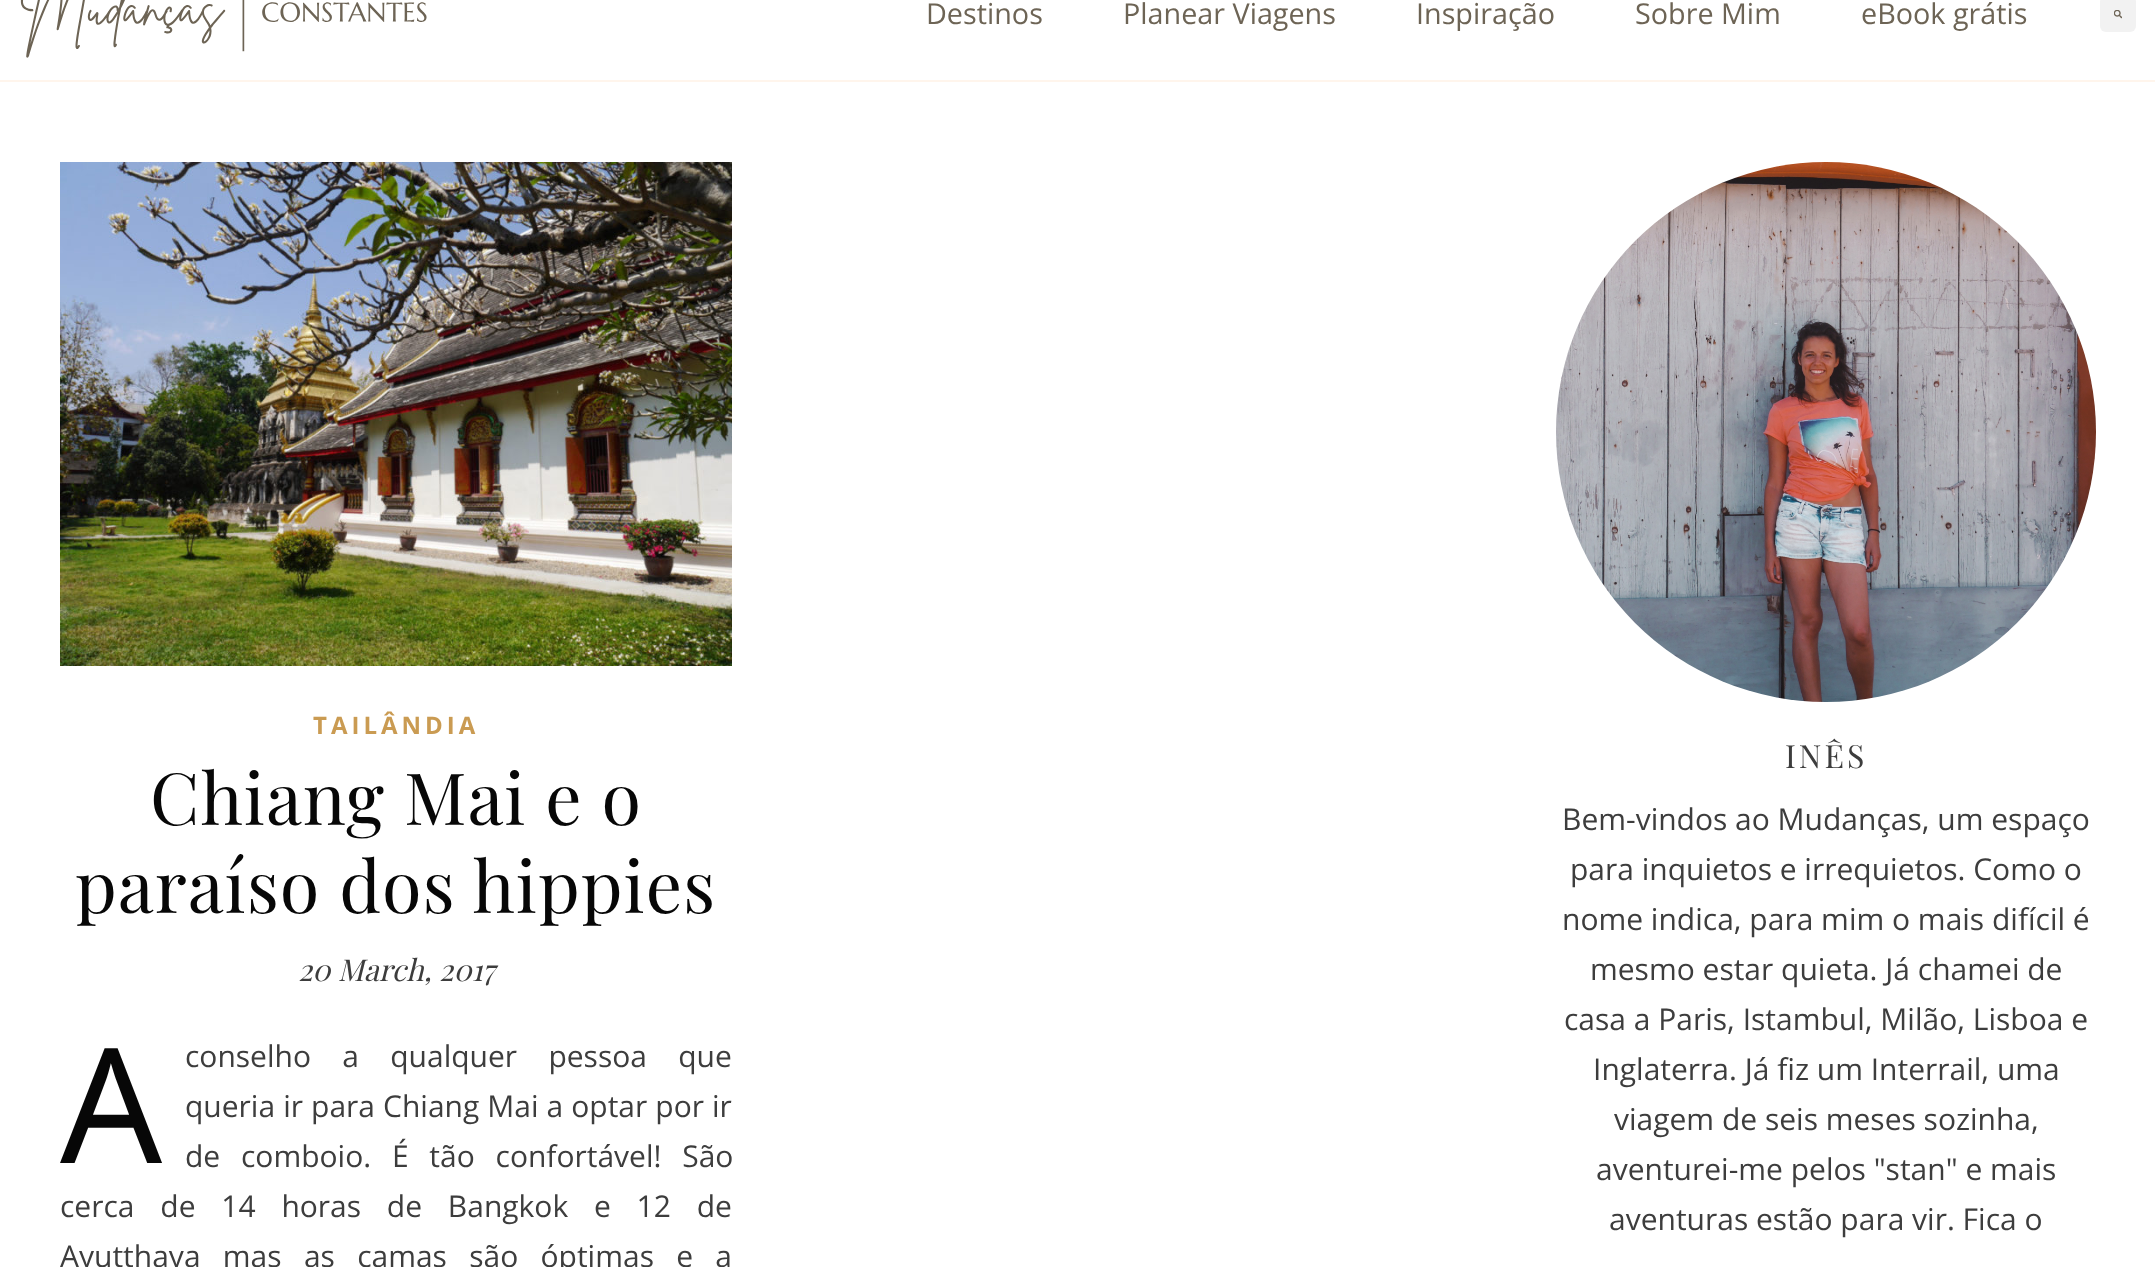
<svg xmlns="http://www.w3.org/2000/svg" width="2155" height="1267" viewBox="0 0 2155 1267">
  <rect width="100%" height="100%" fill="#fff"/>
  <path d="M0 80h2155v2H0z" fill="#fff5ec"/>
  <image x="20" y="0" width="407" height="58" href="img/1.png"/>
  <rect x="2100" y="-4" width="36" height="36" rx="6" fill="#f2f2f2"/>
  <image x="2114" y="10" width="8" height="9" href="img/2.png"/>
  <image x="60" y="162" width="672" height="504" href="img/3.png"/>
  <image x="1556" y="162" width="540" height="540" href="img/4.png"/>
  <g font-family="Open Sans" font-size="28.75" fill="#6d6455">
    <text x="926" y="24">Destinos</text>
    <text x="1123" y="24">Planear Viagens</text>
    <text x="1416" y="24">Inspiração</text>
    <text x="1635" y="24">Sobre Mim</text>
    <text x="1861" y="24">eBook grátis</text>
  </g>
  <text x="313" y="734" font-family="Open Sans" font-size="24" font-weight="bold" letter-spacing="4" fill="#ca9b52">TAILÂNDIA</text>
  <g font-family="Playfair Display" font-size="72" letter-spacing="1" fill="#070707">
    <text x="150" y="825">Chiang Mai e o</text>
    <text x="75" y="913">paraíso dos hippies</text>
  </g>
  <text x="298" y="981" font-family="Playfair Display" font-size="30" font-style="italic" fill="#3d3d3d">20 March, 2017</text>
  <text x="60" y="1163" font-family="Noto Sans" font-size="160" fill="#070707">A</text>
  <g font-family="Open Sans" font-size="30" fill="#3d3d3d">
    <text x="185" y="1067" word-spacing="23.5">conselho a qualquer pessoa que</text>
    <text x="185" y="1117" word-spacing="0.25">queria ir para Chiang Mai a optar por ir</text>
    <text x="185" y="1167" word-spacing="13">de comboio. É tão confortável! São</text>
    <text x="60" y="1217" word-spacing="18">cerca de 14 horas de Bangkok e 12 de</text>
    <text x="60" y="1267" word-spacing="14.5">Ayutthaya mas as camas são óptimas e a</text>
  </g>
  <text x="1785" y="768" font-family="Playfair Display" font-size="32" letter-spacing="3" fill="#3d3d3d">INÊS</text>
  <g font-family="Open Sans" font-size="30" fill="#3d3d3d">
    <text x="1562" y="830">Bem-vindos ao Mudanças, um espaço</text>
    <text x="1570" y="880">para inquietos e irrequietos. Como o</text>
    <text x="1562" y="930">nome indica, para mim o mais difícil é</text>
    <text x="1590" y="980">mesmo estar quieta. Já chamei de</text>
    <text x="1564" y="1030">casa a Paris, Istambul, Milão, Lisboa e</text>
    <text x="1593" y="1080">Inglaterra. Já fiz um Interrail, uma</text>
    <text x="1614" y="1130">viagem de seis meses sozinha,</text>
    <text x="1596" y="1180">aventurei-me pelos "stan" e mais</text>
    <text x="1609" y="1230">aventuras estão para vir. Fica o</text>
  </g>
</svg>
